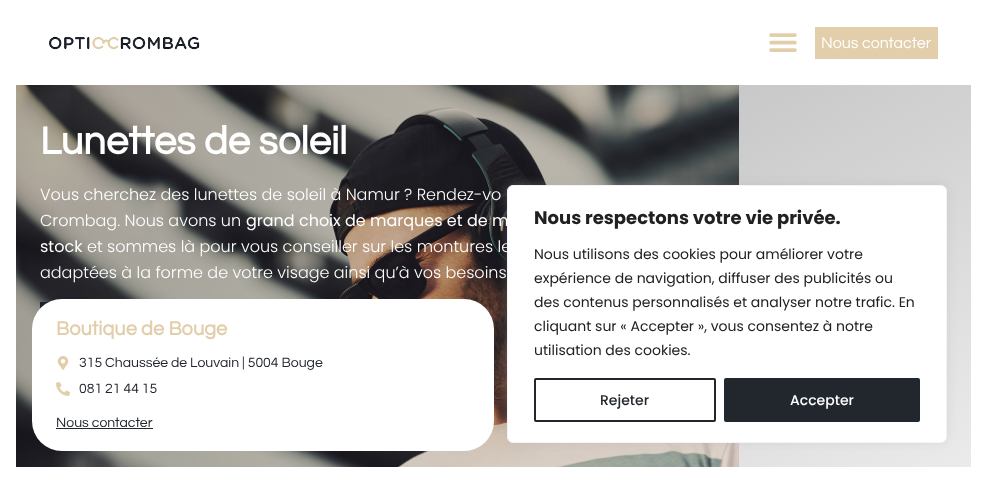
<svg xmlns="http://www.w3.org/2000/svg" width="987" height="483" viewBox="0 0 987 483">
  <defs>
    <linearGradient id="g1" gradientUnits="userSpaceOnUse" x1="294" y1="-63" x2="693" y2="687"><stop offset="0" stop-color="#000" stop-opacity="0.32"/><stop offset="1" stop-color="#000" stop-opacity="0.06"/></linearGradient>
  </defs>
  <rect width="100%" height="100%" fill="#fff"/>
  <image x="49" y="36" width="151" height="14" href="img/1.png"/>
  <image x="769" y="33" width="28" height="19" href="img/2.png"/>
  <path d="M815 27h123v32H815z" fill="#e2ceaa"/>
  <image x="16" y="85" width="723" height="382" href="img/3.png"/>
  <path d="M16 85h955v382H16z" fill="url(#g1)"/>
  <path d="M40 302h9v7H40z" fill="#1e222a"/>
  <rect x="32" y="299" width="462" height="152" rx="30" fill="#fff"/>
  <image x="57" y="356" width="12" height="14" href="img/4.png"/>
  <image x="56" y="382" width="14" height="14" href="img/5.png"/>
  <path d="M56 428h97v1H56z" fill="#22262d"/>
  <rect x="507" y="184" width="440" height="258" rx="6" fill="#acabab4d" filter="blur(5px)"/>
  <rect x="507.5" y="185.5" width="439" height="257" rx="5.5" fill="#fff" stroke="#f4f4f4"/>
  <rect x="535" y="379" width="180" height="42" rx="1" fill="none" stroke="#22262d" stroke-width="2"/>
  <rect x="725" y="379" width="194" height="42" rx="1" fill="#22262d" stroke="#22262d" stroke-width="2"/>
  <text x="821" y="48" font-family="Questrial" font-size="16" fill="#fff">Nous contacter</text>
  <text x="40" y="154" font-family="Questrial" font-size="40" font-weight="bold" fill="#fff">Lunettes de soleil</text>
  <g font-family="Poppins" font-size="16" font-weight="300" fill="#fff">
    <text x="40" y="200">Vous cherchez des lunettes de soleil à Namur ? Rendez-vo</text>
    <text x="40" y="226">Crombag. Nous avons un</text>
  </g>
  <g font-family="Poppins" font-size="16" fill="#fff">
    <text x="246" y="226">grand choix de marques et de m</text>
    <text x="40" y="252">stock</text>
  </g>
  <g font-family="Poppins" font-size="16" font-weight="300" fill="#fff">
    <text x="87" y="252">et sommes là pour vous conseiller sur les montures le</text>
    <text x="40" y="278">adaptées à la forme de votre visage ainsi qu’à vos besoins</text>
  </g>
  <text x="56" y="335" font-family="Questrial" font-size="20" font-weight="bold" fill="#e2ceaa">Boutique de Bouge</text>
  <g font-family="Questrial" font-size="14" fill="#22262d">
    <text x="79" y="367">315 Chaussée de Louvain | 5004 Bouge</text>
    <text x="79" y="393">081 21 44 15</text>
    <text x="56" y="427">Nous contacter</text>
  </g>
  <text x="534" y="224" font-family="Poppins" font-size="18" font-weight="bold" fill="#212121">Nous respectons votre vie privée.</text>
  <g font-family="Poppins" font-size="14" fill="#212121">
    <text x="534" y="259">Nous utilisons des cookies pour améliorer votre</text>
    <text x="534" y="283">expérience de navigation, diffuser des publicités ou</text>
    <text x="534" y="307">des contenus personnalisés et analyser notre trafic. En</text>
    <text x="534" y="331">cliquant sur « Accepter », vous consentez à notre</text>
    <text x="534" y="355">utilisation des cookies.</text>
  </g>
  <text x="600" y="405" font-family="Poppins" font-size="14" font-weight="500" fill="#22262d">Rejeter</text>
  <text x="790" y="405" font-family="Poppins" font-size="14" font-weight="500" fill="#fff">Accepter</text>
</svg>
